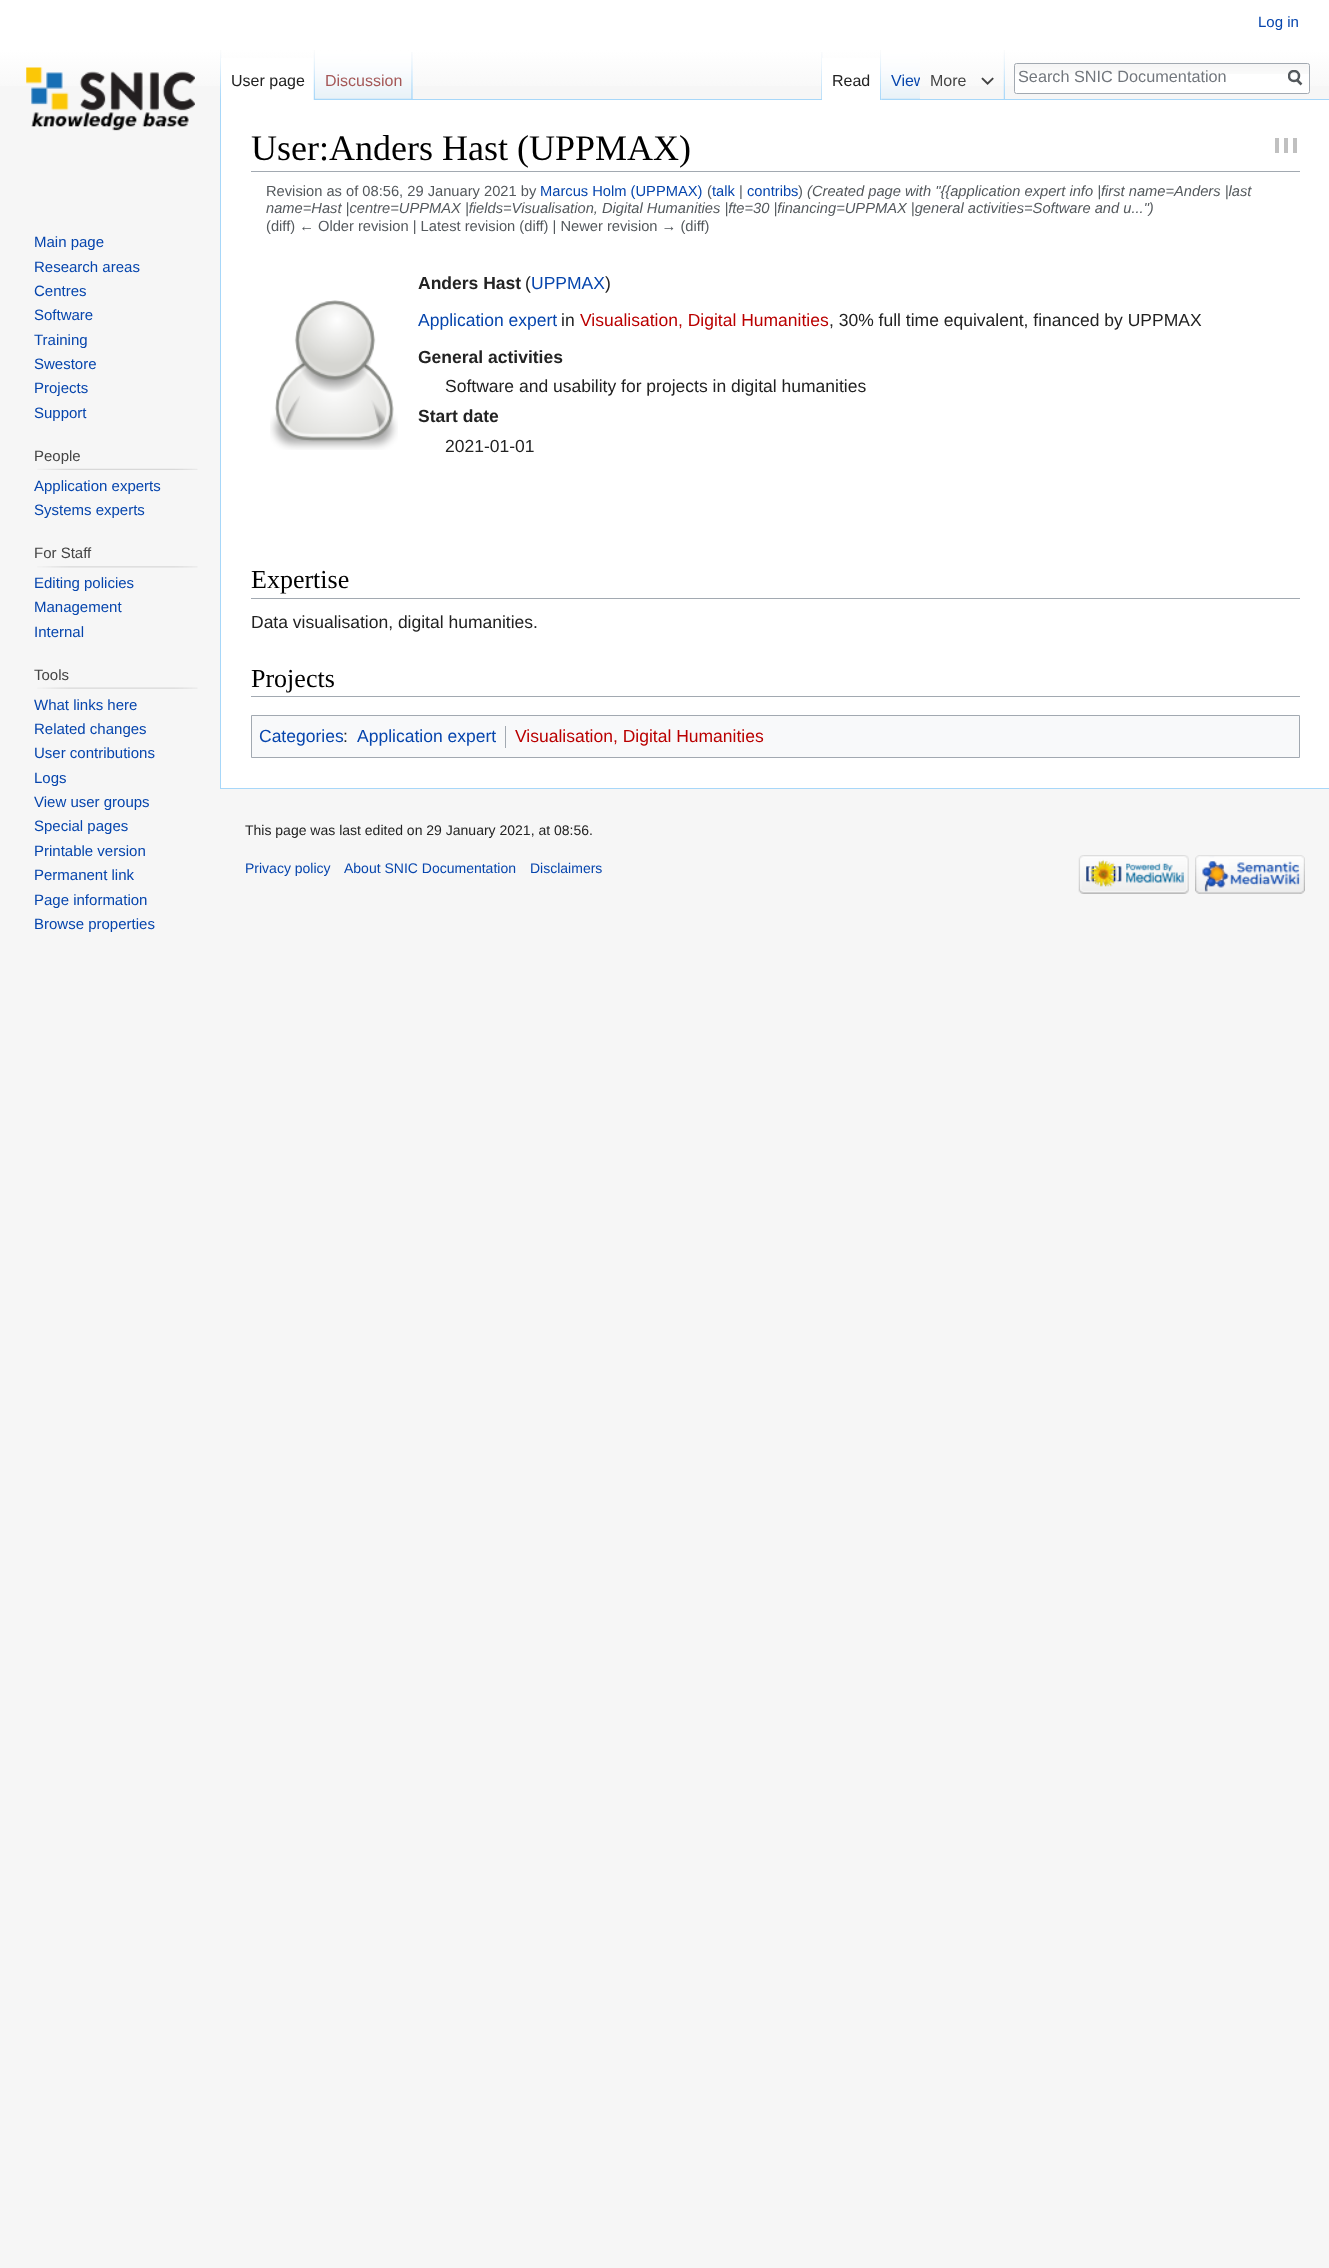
<svg xmlns="http://www.w3.org/2000/svg" width="1329" height="2268" viewBox="0 0 1329 2268">
  <defs>
    <linearGradient id="g1" gradientUnits="userSpaceOnUse" x1="665" y1="0" x2="665" y2="100"><stop offset="0.5" stop-color="#fff"/><stop offset="1" stop-color="#f6f6f6"/></linearGradient>
    <clipPath id="clip1"><path d="M1288 70h15v16H1288z"/></clipPath>
    <clipPath id="clip2"><path d="M881 50h39v50H881z"/></clipPath>
  </defs>
  <rect width="100%" height="100%" fill="#f6f6f6"/>
  <path d="M0 0h1329v86H0z" fill="url(#g1)"/>
  <image x="220" y="50" width="2" height="49" href="img/1.png"/>
  <image x="412" y="52" width="1" height="47" href="img/2.png"/>
  <path d="M221 58h93v42H221z" fill="#fff"/>
  <image x="313" y="50" width="2" height="50" href="img/3.png"/>
  <image x="315" y="52" width="98" height="47" href="img/4.png"/>
  <image x="411" y="52" width="2" height="47" href="img/5.png"/>
  <image x="821" y="52" width="2" height="47" href="img/6.png"/>
  <path d="M315 99h1014v1H315z" fill="#a7d7f9"/>
  <path d="M822 58h60v42H822z" fill="#fff"/>
  <image x="880" y="50" width="2" height="50" href="img/7.png"/>
  <image x="881" y="50" width="39" height="50" href="img/8.png"/>
  <image x="1003" y="50" width="2" height="49" href="img/9.png"/>
  <image x="981" y="77" width="13" height="8" href="img/10.png"/>
  <rect x="1014" y="63" width="296" height="31" rx="2.5" fill="#fff"/>
  <image x="1014" y="64" width="296" height="10" href="img/11.png"/>
  <rect x="1014.5" y="63.5" width="295" height="30" rx="2" fill="none" stroke="#a2a9b1"/>
  <path d="M1301.5 84.5L1296.5 79.5" fill="none" stroke="#54595d" stroke-width="2.5"/>
  <g clip-path="url(#clip1)">
    <circle cx="1294" cy="76" r="5" fill="none" stroke="#54595d" stroke-width="2.5"/>
  </g>
  <image x="26" y="67" width="169" height="64" href="img/12.png"/>
  <image x="37" y="468" width="161" height="2" href="img/13.png"/>
  <image x="37" y="566" width="161" height="2" href="img/14.png"/>
  <image x="37" y="687" width="161" height="2" href="img/15.png"/>
  <path d="M221 100h1108v688H221z" fill="#fff"/>
  <path d="M220 788h1109v1H220z" fill="#a7d7f9"/>
  <path d="M220 99h1v690H220z" fill="#a7d7f9"/>
  <path d="M251 171h1049v1H251z" fill="#a2a9b1"/>
  <path d="M1284 138h4v15H1284z" fill="#c0c0c0"/>
  <path d="M1275 138h4v15H1275z" fill="#c0c0c0"/>
  <path d="M1293 138h4v15H1293z" fill="#c0c0c0"/>
  <image x="270" y="300" width="128" height="150" href="img/16.png"/>
  <path d="M251 598h1049v1H251z" fill="#a2a9b1"/>
  <path d="M251 696h1049v1H251z" fill="#a2a9b1"/>
  <path d="M251.5 715.5h1048v42H251.5z" fill="#f8f9fa" stroke="#a2a9b1"/>
  <path d="M505 726h1v22H505z" fill="#a2a9b1"/>
  <image x="1078" y="855" width="111" height="39" href="img/17.png"/>
  <image x="1195" y="855" width="110" height="39" href="img/18.png"/>
  <text x="1258" y="27" font-family="Liberation Sans" font-size="15" fill="#0645ad">Log in</text>
  <text x="231" y="86" font-family="Liberation Sans" font-size="16" fill="#222">User page</text>
  <text x="325" y="86" font-family="Liberation Sans" font-size="16" fill="#a55858">Discussion</text>
  <text x="832" y="86" font-family="Liberation Sans" font-size="16" fill="#222">Read</text>
  <g clip-path="url(#clip2)">
    <text x="891" y="86" font-family="Liberation Sans" font-size="16" fill="#0645ad">View</text>
  </g>
  <text x="930" y="86" font-family="Liberation Sans" font-size="16" fill="#444">More</text>
  <text x="1018" y="82" font-family="Liberation Sans" font-size="16.25" fill="#72777d">Search SNIC Documentation</text>
  <g font-family="Liberation Sans" font-size="15" fill="#0645ad">
    <text x="34" y="247">Main page</text>
    <text x="34" y="272">Research areas</text>
    <text x="34" y="296">Centres</text>
    <text x="34" y="320">Software</text>
    <text x="34" y="345">Training</text>
    <text x="34" y="369">Swestore</text>
    <text x="34" y="393">Projects</text>
    <text x="34" y="418">Support</text>
  </g>
  <text x="34" y="461" font-family="Liberation Sans" font-size="15" fill="#444">People</text>
  <g font-family="Liberation Sans" font-size="15" fill="#0645ad">
    <text x="34" y="491">Application experts</text>
    <text x="34" y="515">Systems experts</text>
  </g>
  <text x="34" y="558" font-family="Liberation Sans" font-size="15" fill="#444">For Staff</text>
  <g font-family="Liberation Sans" font-size="15" fill="#0645ad">
    <text x="34" y="588">Editing policies</text>
    <text x="34" y="612">Management</text>
    <text x="34" y="637">Internal</text>
  </g>
  <text x="34" y="680" font-family="Liberation Sans" font-size="15" fill="#444">Tools</text>
  <g font-family="Liberation Sans" font-size="15" fill="#0645ad">
    <text x="34" y="710">What links here</text>
    <text x="34" y="734">Related changes</text>
    <text x="34" y="758">User contributions</text>
    <text x="34" y="783">Logs</text>
    <text x="34" y="807">View user groups</text>
    <text x="34" y="831">Special pages</text>
    <text x="34" y="856">Printable version</text>
    <text x="34" y="880">Permanent link</text>
    <text x="34" y="905">Page information</text>
    <text x="34" y="929">Browse properties</text>
  </g>
  <text x="251" y="160" font-family="Liberation Serif" font-size="36" fill="#000">User:Anders Hast (UPPMAX)</text>
  <text x="266" y="196" font-family="Liberation Sans" font-size="14.7" fill="#54595d">Revision as of 08:56, 29 January 2021 by</text>
  <text x="540" y="196" font-family="Liberation Sans" font-size="14.7" fill="#0645ad">Marcus Holm (UPPMAX)</text>
  <text x="707" y="196" font-family="Liberation Sans" font-size="14.7" fill="#54595d">(</text>
  <text x="712" y="196" font-family="Liberation Sans" font-size="14.7" fill="#0645ad">talk</text>
  <text x="739" y="196" font-family="Liberation Sans" font-size="14.7" fill="#54595d">|</text>
  <text x="747" y="196" font-family="Liberation Sans" font-size="14.7" fill="#0645ad">contribs</text>
  <text x="798" y="196" font-family="Liberation Sans" font-size="14.7" fill="#54595d">)</text>
  <g font-family="Liberation Sans" font-size="14.7" font-style="italic" fill="#54595d">
    <text x="807" y="196">(Created page with "{{application expert info |first name=Anders |last</text>
    <text x="266" y="213">name=Hast |centre=UPPMAX |fields=Visualisation, Digital Humanities |fte=30 |financing=UPPMAX |general activities=Software and u...")</text>
  </g>
  <text x="266" y="231" font-family="Liberation Sans" font-size="14.7" fill="#54595d">(diff) ← Older revision | Latest revision (diff) | Newer revision → (diff)</text>
  <text x="418" y="289" font-family="Liberation Sans" font-size="17.5" font-weight="bold" fill="#222">Anders Hast</text>
  <text x="525" y="289" font-family="Liberation Sans" font-size="17.5" fill="#222">(</text>
  <text x="531" y="289" font-family="Liberation Sans" font-size="17.5" fill="#0645ad">UPPMAX</text>
  <text x="605" y="289" font-family="Liberation Sans" font-size="17.5" fill="#222">)</text>
  <text x="418" y="326" font-family="Liberation Sans" font-size="17.5" fill="#0645ad">Application expert</text>
  <text x="561" y="326" font-family="Liberation Sans" font-size="17.5" fill="#222">in</text>
  <text x="580" y="326" font-family="Liberation Sans" font-size="17.5" fill="#ba0000">Visualisation, Digital Humanities</text>
  <text x="829" y="326" font-family="Liberation Sans" font-size="17.5" fill="#222">, 30% full time equivalent, financed by UPPMAX</text>
  <text x="418" y="363" font-family="Liberation Sans" font-size="17.5" font-weight="bold" fill="#222">General activities</text>
  <text x="445" y="392" font-family="Liberation Sans" font-size="17.5" fill="#222">Software and usability for projects in digital humanities</text>
  <text x="418" y="422" font-family="Liberation Sans" font-size="17.5" font-weight="bold" fill="#222">Start date</text>
  <text x="445" y="452" font-family="Liberation Sans" font-size="17.5" fill="#222">2021-01-01</text>
  <text x="251" y="588" font-family="Liberation Serif" font-size="26" fill="#000">Expertise</text>
  <text x="251" y="628" font-family="Liberation Sans" font-size="17.5" fill="#222">Data visualisation, digital humanities.</text>
  <text x="251" y="687" font-family="Liberation Serif" font-size="26" fill="#000">Projects</text>
  <text x="259" y="742" font-family="Liberation Sans" font-size="17.5" fill="#0645ad">Categories</text>
  <text x="343" y="742" font-family="Liberation Sans" font-size="17.5" fill="#222">:</text>
  <text x="357" y="742" font-family="Liberation Sans" font-size="17.5" fill="#0645ad">Application expert</text>
  <text x="515" y="742" font-family="Liberation Sans" font-size="17.5" fill="#ba0000">Visualisation, Digital Humanities</text>
  <text x="245" y="835" font-family="Liberation Sans" font-size="14" fill="#222">This page was last edited on 29 January 2021, at 08:56.</text>
  <g font-family="Liberation Sans" font-size="14" fill="#0645ad">
    <text x="245" y="873">Privacy policy</text>
    <text x="344" y="873">About SNIC Documentation</text>
    <text x="530" y="873">Disclaimers</text>
  </g>
</svg>
